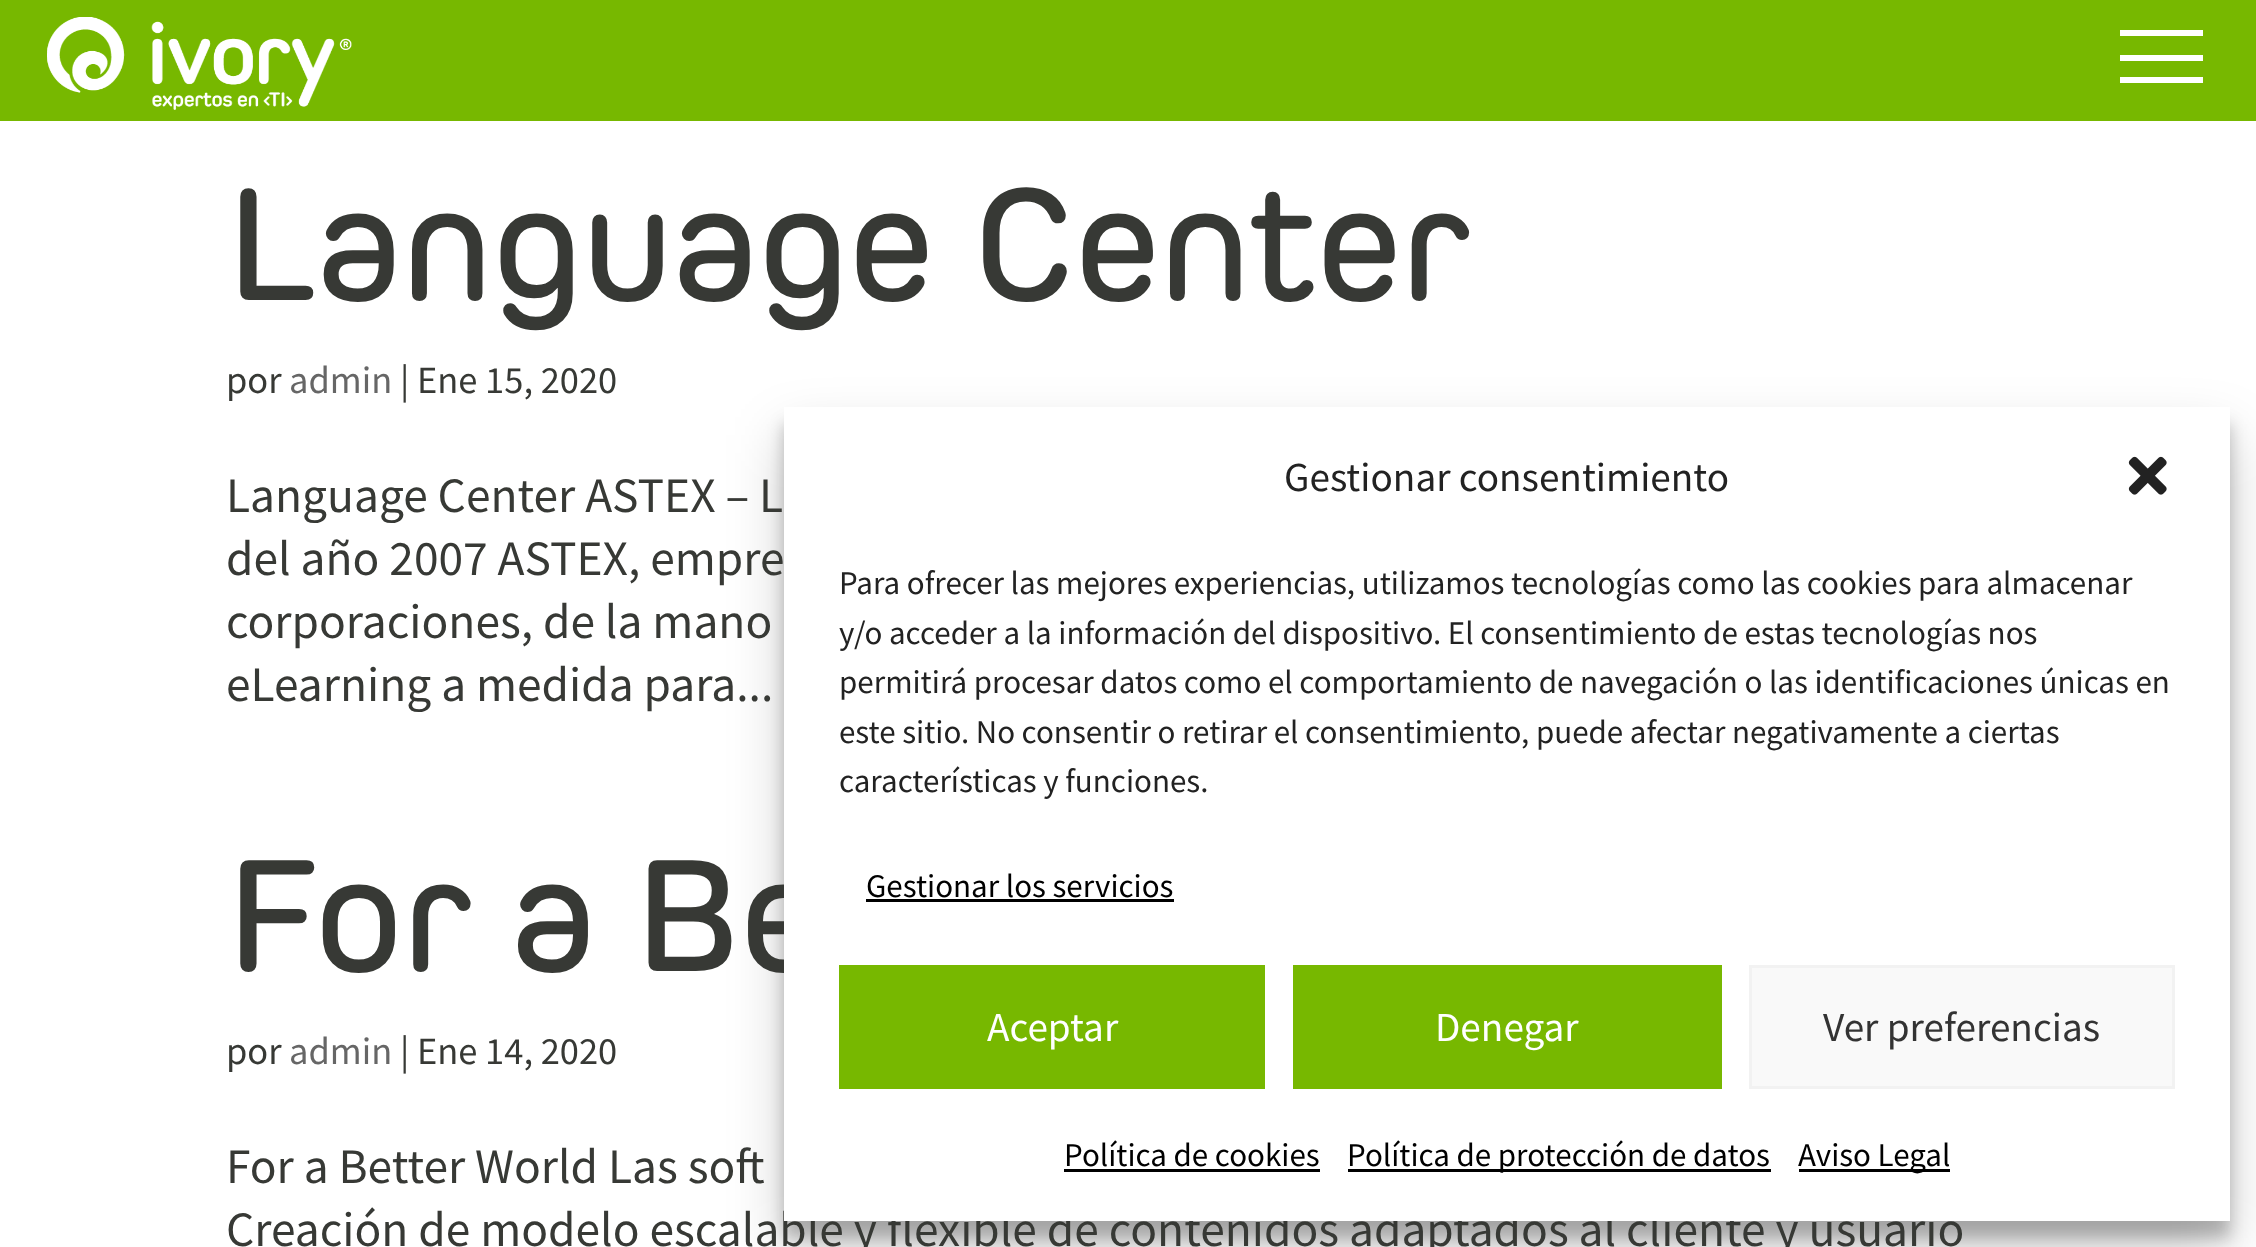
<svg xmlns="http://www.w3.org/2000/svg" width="2256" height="1247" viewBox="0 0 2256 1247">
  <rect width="100%" height="100%" fill="#fff"/>
  <path d="M0 0h2256v121H0z" fill="#77b800"/>
  <image x="47" y="17" width="305" height="93" href="img/1.png"/>
  <path d="M2120 30h83v6H2120z" fill="#fff"/>
  <path d="M2120 55h83v6H2120z" fill="#fff"/>
  <path d="M2120 77h83v6H2120z" fill="#fff"/>
  <path d="M784 424h1446v814H784z" fill="#0000003b" filter="blur(8px)"/>
  <path d="M784 435h1446v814H784z" fill="#00000030" filter="blur(27.5px)"/>
  <text x="226" y="300" font-family="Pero" font-size="167.75" font-weight="600" fill="#373935">Language Center</text>
  <text x="226" y="393" font-family="Source Sans Pro" font-size="38.5" fill="#373935">por</text>
  <text x="289" y="393" font-family="Source Sans Pro" font-size="38.5" fill="#666">admin</text>
  <text x="400" y="393" font-family="Source Sans Pro" font-size="38.5" fill="#373935">| Ene 15, 2020</text>
  <g font-family="Source Sans Pro" font-size="49.5" fill="#373935">
    <text x="226" y="512">Language Center ASTEX – L</text>
    <text x="226" y="575">del año 2007 ASTEX, empre</text>
    <text x="226" y="638">corporaciones, de la mano</text>
    <text x="226" y="701">eLearning a medida para...</text>
  </g>
  <text x="226" y="971" font-family="Pero" font-size="167.75" font-weight="600" fill="#373935">For a Be</text>
  <text x="226" y="1064" font-family="Source Sans Pro" font-size="38.5" fill="#373935">por</text>
  <text x="289" y="1064" font-family="Source Sans Pro" font-size="38.5" fill="#666">admin</text>
  <text x="400" y="1064" font-family="Source Sans Pro" font-size="38.5" fill="#373935">| Ene 14, 2020</text>
  <g font-family="Source Sans Pro" font-size="49.5" fill="#373935">
    <text x="226" y="1183">For a Better World Las soft</text>
    <text x="226" y="1246">Creación de modelo escalable y flexible de contenidos adaptados al cliente y usuario</text>
  </g>
  <path d="M784 407h1446v814H784z" fill="#fff"/>
  <text x="1284" y="491" font-family="Source Sans Pro" font-size="41.25" fill="#222">Gestionar consentimiento</text>
  <image x="2128" y="456" width="39" height="39" href="img/2.png"/>
  <g font-family="Source Sans Pro" font-size="33" fill="#222">
    <text x="839" y="594">Para ofrecer las mejores experiencias, utilizamos tecnologías como las cookies para almacenar</text>
    <text x="839" y="644">y/o acceder a la información del dispositivo. El consentimiento de estas tecnologías nos</text>
    <text x="839" y="693">permitirá procesar datos como el comportamiento de navegación o las identificaciones únicas en</text>
    <text x="839" y="743">este sitio. No consentir o retirar el consentimiento, puede afectar negativamente a ciertas</text>
    <text x="839" y="792">características y funciones.</text>
  </g>
  <text x="866" y="897" font-family="Source Sans Pro" font-size="33" fill="#000">Gestionar los servicios</text>
  <path d="M866 899h308v3H866z" fill="#000"/>
  <path d="M839 965h426v124H839z" fill="#77b800"/>
  <text x="987" y="1041" font-family="Source Sans Pro" font-size="41.25" fill="#fff">Aceptar</text>
  <path d="M1293 965h429v124H1293z" fill="#77b800"/>
  <text x="1435" y="1041" font-family="Source Sans Pro" font-size="41.25" fill="#fff">Denegar</text>
  <path d="M1750.5 966.5h423v121H1750.5z" fill="#f9f9f9" stroke="#f2f2f2" stroke-width="3"/>
  <text x="1823" y="1041" font-family="Source Sans Pro" font-size="41.25" fill="#333">Ver preferencias</text>
  <text x="1064" y="1166" font-family="Source Sans Pro" font-size="33" fill="#000">Política de cookies</text>
  <path d="M1064 1169h256v3H1064z" fill="#000"/>
  <path d="M1348 1169h423v3H1348z" fill="#000"/>
  <text x="1347" y="1166" font-family="Source Sans Pro" font-size="33" fill="#000">Política de protección de datos</text>
  <path d="M1799 1169h151v3H1799z" fill="#000"/>
  <text x="1798" y="1166" font-family="Source Sans Pro" font-size="33" fill="#000">Aviso Legal</text>
</svg>
